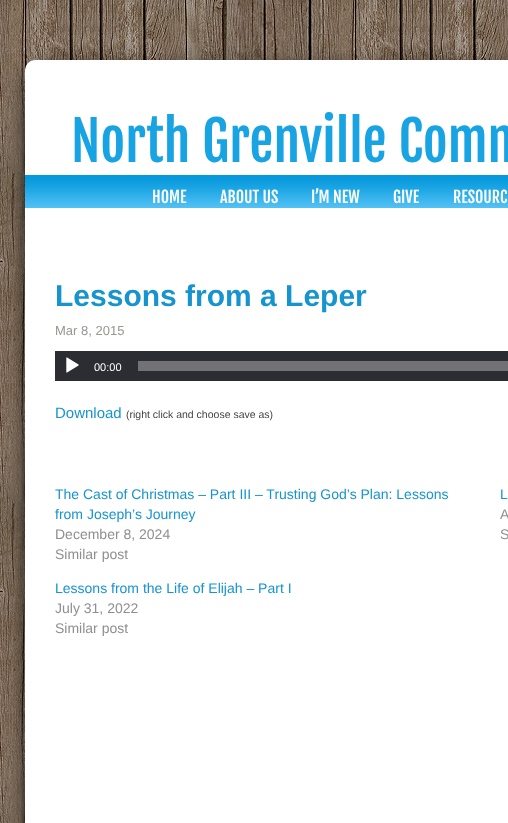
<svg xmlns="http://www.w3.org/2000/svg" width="508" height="823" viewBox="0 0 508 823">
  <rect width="100%" height="100%" fill="#fff"/>
  <image x="0" y="0" width="508" height="823" href="img/1.png"/>
  <rect x="25" y="69" width="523" height="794" rx="10" fill="#000000cc" filter="blur(10px)"/>
  <rect x="25" y="60" width="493" height="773" rx="10" fill="#fff"/>
  <image x="25" y="175" width="483" height="33" href="img/2.png"/>
  <path d="M55 351h453v30H55z" fill="#2c2d33"/>
  <image x="66" y="357" width="13" height="16" href="img/3.png"/>
  <path d="M138 361h370v10H138z" fill="#727276"/>
  <text x="71" y="162" font-family="Fjalla One" font-size="54" fill="#18a3e3">North Grenville Comm</text>
  <g font-family="Fjalla One" font-size="16" fill="#fff">
    <text x="152" y="203">HOME</text>
    <text x="220" y="203">ABOUT US</text>
    <text x="311" y="203">I’M NEW</text>
    <text x="393" y="203">GIVE</text>
    <text x="453" y="203">RESOURC</text>
  </g>
  <text x="55" y="306" font-family="Liberation Sans" font-size="30" font-weight="bold" fill="#1694ce">Lessons from a Leper</text>
  <text x="55" y="335" font-family="Liberation Sans" font-size="13" fill="#999792">Mar 8, 2015</text>
  <text x="94" y="371" font-family="Liberation Sans" font-size="11" fill="#fff">00:00</text>
  <text x="55" y="418" font-family="Liberation Sans" font-size="15" fill="#1694ce">Download</text>
  <text x="126" y="418" font-family="Liberation Sans" font-size="10.5" fill="#444">(right click and choose save as)</text>
  <g font-family="Liberation Sans" font-size="14" fill="#1694ce">
    <text x="55" y="499">The Cast of Christmas – Part III – Trusting God’s Plan: Lessons</text>
    <text x="55" y="519">from Joseph’s Journey</text>
  </g>
  <g font-family="Liberation Sans" font-size="14" fill="#8f8f8f">
    <text x="55" y="539">December 8, 2024</text>
    <text x="55" y="559">Similar post</text>
  </g>
  <text x="500" y="499" font-family="Liberation Sans" font-size="14" fill="#1694ce">L</text>
  <g font-family="Liberation Sans" font-size="14" fill="#8f8f8f">
    <text x="500" y="519">A</text>
    <text x="500" y="539">S</text>
  </g>
  <text x="55" y="593" font-family="Liberation Sans" font-size="14" fill="#1694ce">Lessons from the Life of Elijah – Part I</text>
  <g font-family="Liberation Sans" font-size="14" fill="#8f8f8f">
    <text x="55" y="613">July 31, 2022</text>
    <text x="55" y="633">Similar post</text>
  </g>
</svg>
